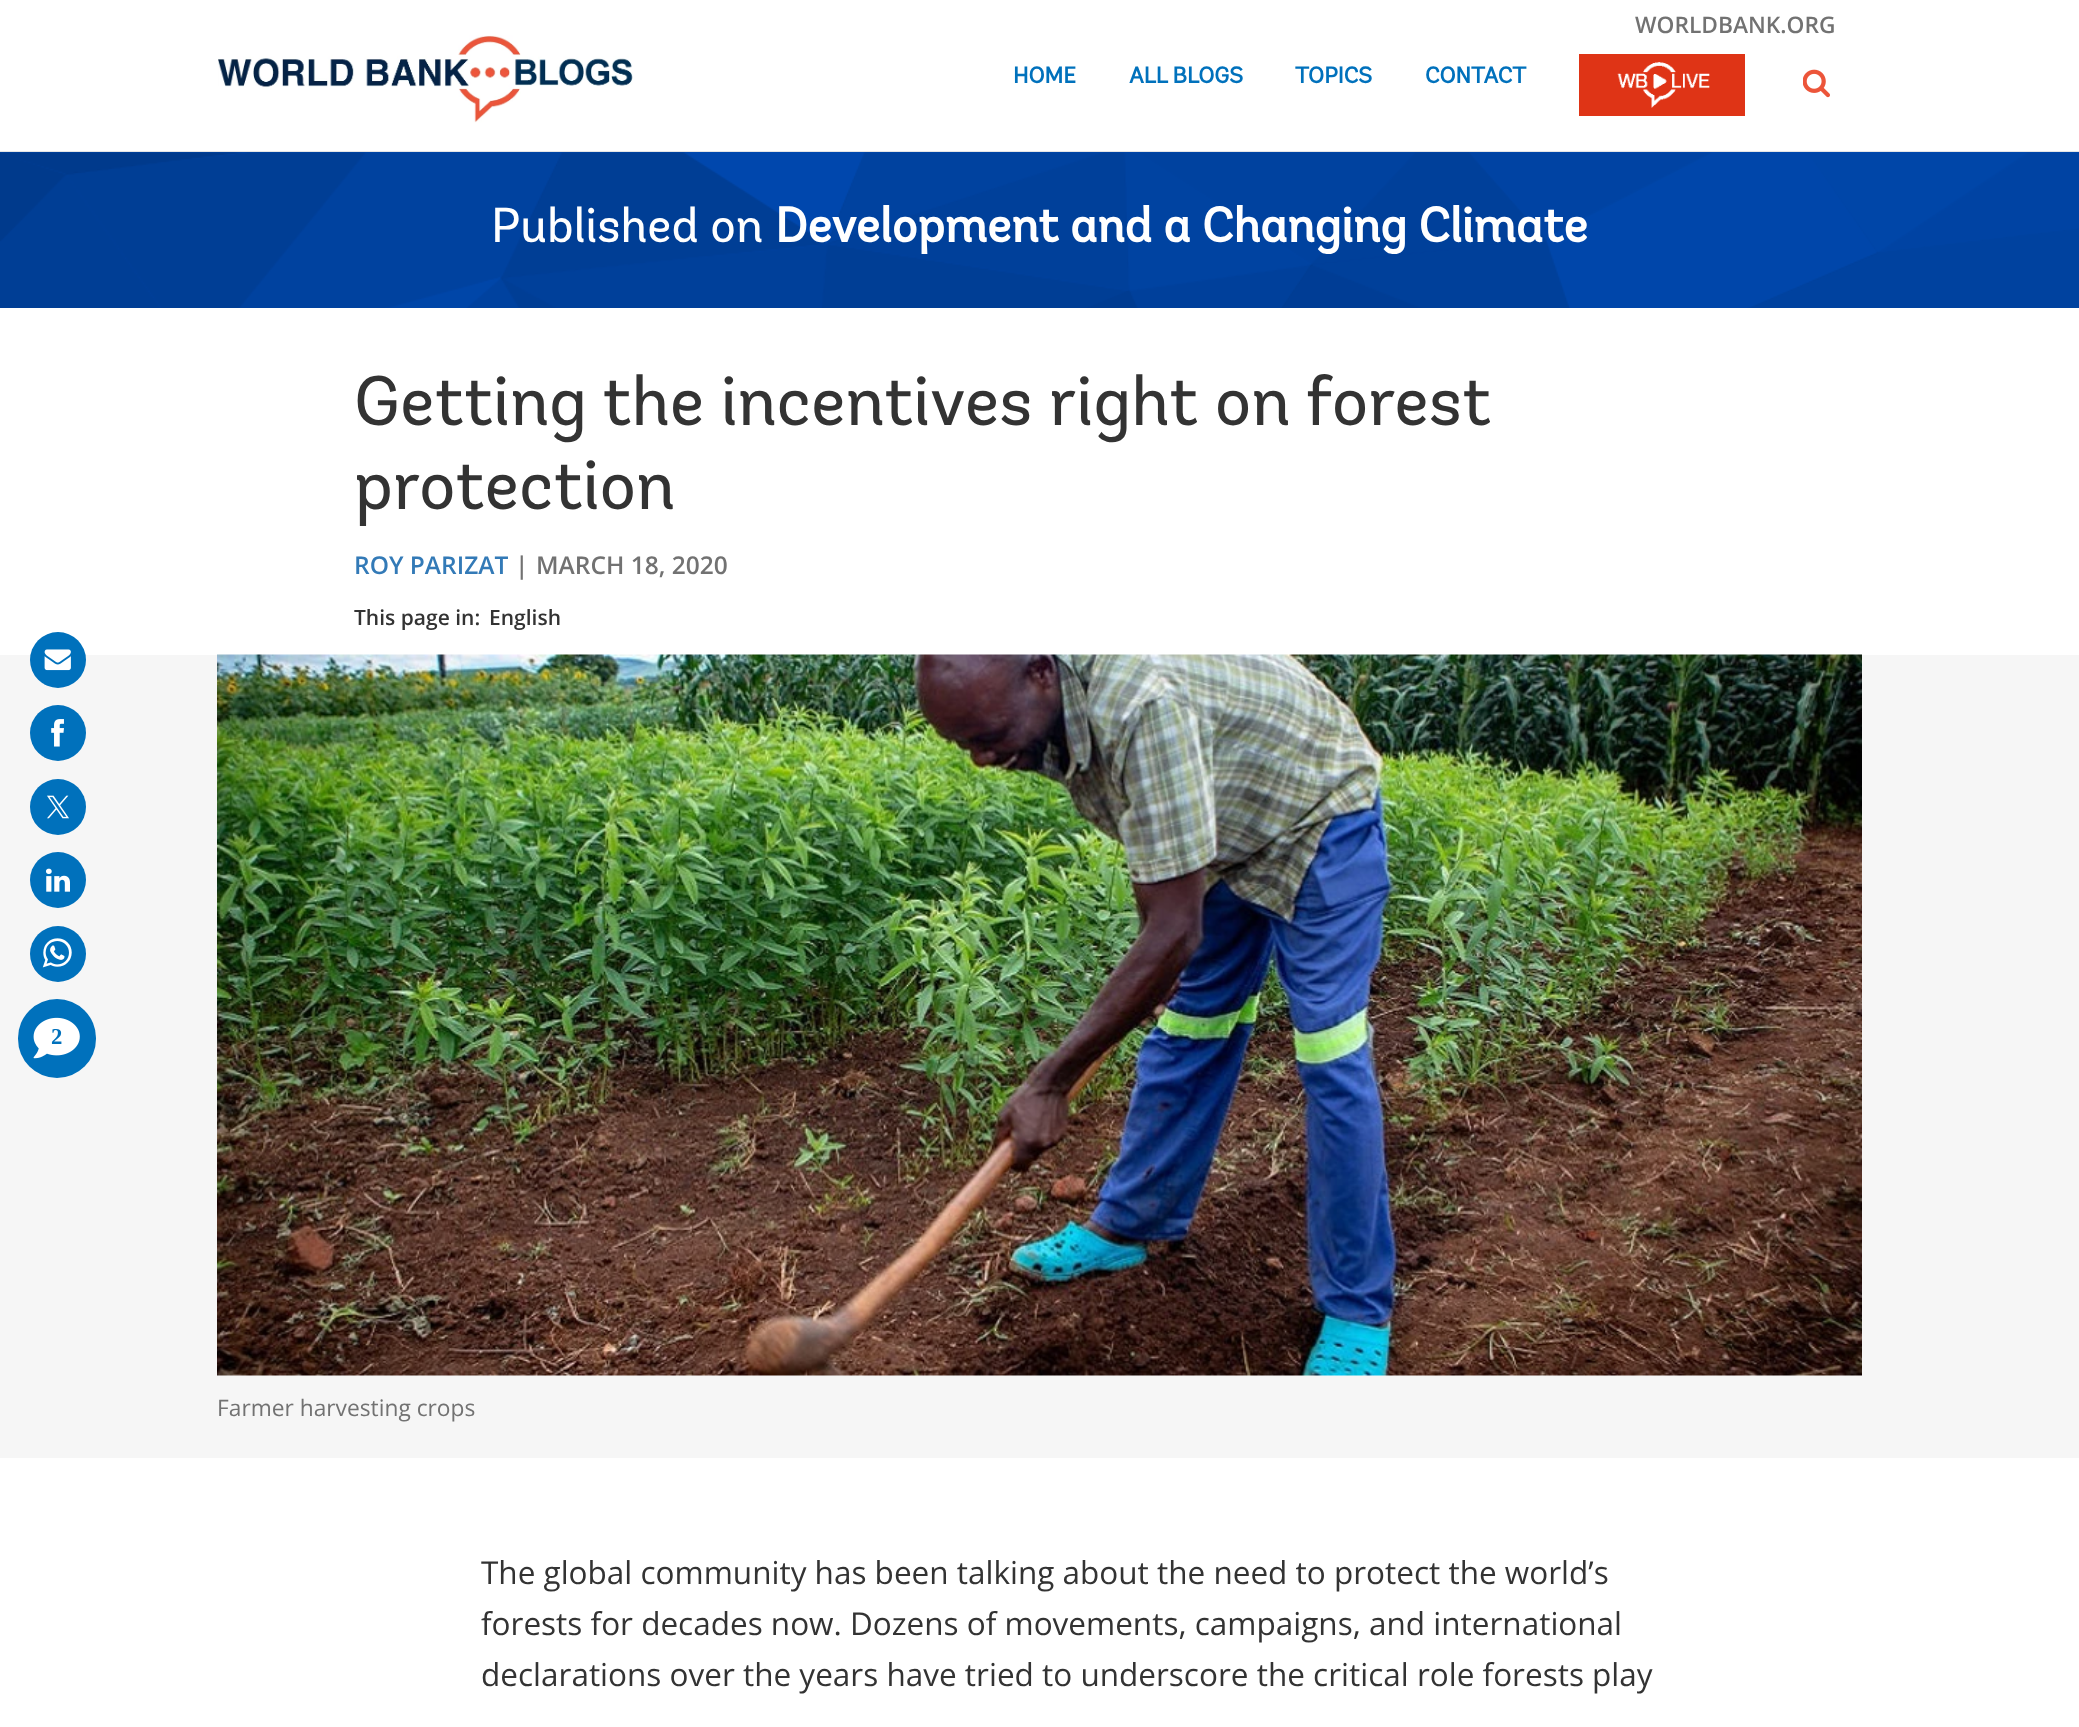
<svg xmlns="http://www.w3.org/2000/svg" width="2079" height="1727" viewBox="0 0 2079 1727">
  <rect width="100%" height="100%" fill="#fff"/>
  <path d="M0 151h2079v1H0z" fill="#e5e5e5"/>
  <image x="218" y="35" width="415" height="88" href="img/1.png"/>
  <path d="M1579 54h166v62H1579z" fill="#df3416"/>
  <image x="1617" y="62" width="93" height="46" href="img/2.png"/>
  <image x="1803" y="69" width="27" height="29" href="img/3.png"/>
  <path d="M0 152h2079v156H0z" fill="#004ebc"/>
  <image x="0" y="152" width="2079" height="156" href="img/4.png"/>
  <path d="M0 655h2079v803H0z" fill="#f6f6f6"/>
  <circle cx="58" cy="660" r="28" fill="#0071bc"/>
  <image x="44" y="649" width="27" height="22" href="img/5.png"/>
  <circle cx="58" cy="733" r="28" fill="#0071bc"/>
  <image x="51" y="719" width="13" height="28" href="img/6.png"/>
  <circle cx="58" cy="807" r="28" fill="#0071bc"/>
  <image x="47" y="795" width="22" height="24" href="img/7.png"/>
  <circle cx="58" cy="880" r="28" fill="#0071bc"/>
  <image x="46" y="868" width="24" height="24" href="img/8.png"/>
  <circle cx="58" cy="954" r="28" fill="#0071bc"/>
  <image x="42" y="938" width="30" height="30" href="img/9.png"/>
  <rect x="18" y="999" width="78" height="79" rx="39" fill="#0071bc"/>
  <image x="33" y="1017" width="47" height="42" href="img/10.png"/>
  <image x="217" y="654" width="1645" height="722" href="img/11.png"/>
  <text x="1635" y="33" font-family="Open Sans" font-size="22.75" font-weight="600" fill="#727272">WORLDBANK.ORG</text>
  <g font-family="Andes" font-size="22.75" font-weight="bold" fill="#0071bc">
    <text x="1013" y="83">HOME</text>
    <text x="1129" y="83">ALL BLOGS</text>
    <text x="1295" y="83">TOPICS</text>
    <text x="1425" y="83">CONTACT</text>
  </g>
  <text x="491" y="242" font-family="Andes" font-size="49" fill="#fff">Published on</text>
  <text x="775" y="242" font-family="Andes" font-size="49" font-weight="bold" fill="#fff">Development and a Changing Climate</text>
  <text x="51" y="1044" font-family="Liberation Serif" font-size="22.75" font-weight="bold" fill="#0071bc">2</text>
  <g font-family="Andes" font-size="70" fill="#333">
    <text x="354" y="425">Getting the incentives right on forest</text>
    <text x="354" y="509">protection</text>
  </g>
  <text x="354" y="574" font-family="Open Sans" font-size="24.5" font-weight="600" fill="#337ab7">ROY PARIZAT</text>
  <g font-family="Open Sans" font-size="24.5" font-weight="600" fill="#727272">
    <text x="515" y="574">|</text>
    <text x="536" y="574">MARCH 18, 2020</text>
  </g>
  <g font-family="Open Sans" font-size="21" font-weight="600" fill="#333">
    <text x="354" y="625">This page in:</text>
    <text x="489" y="625">English</text>
  </g>
  <text x="217" y="1416" font-family="Open Sans" font-size="22.75" fill="#727272">Farmer harvesting crops</text>
  <g font-family="Open Sans" font-size="31.5" fill="#333">
    <text x="481" y="1584">The global community has been talking about the need to protect the world’s</text>
    <text x="481" y="1635">forests for decades now. Dozens of movements, campaigns, and international</text>
    <text x="481" y="1686">declarations over the years have tried to underscore the critical role forests play</text>
  </g>
</svg>
